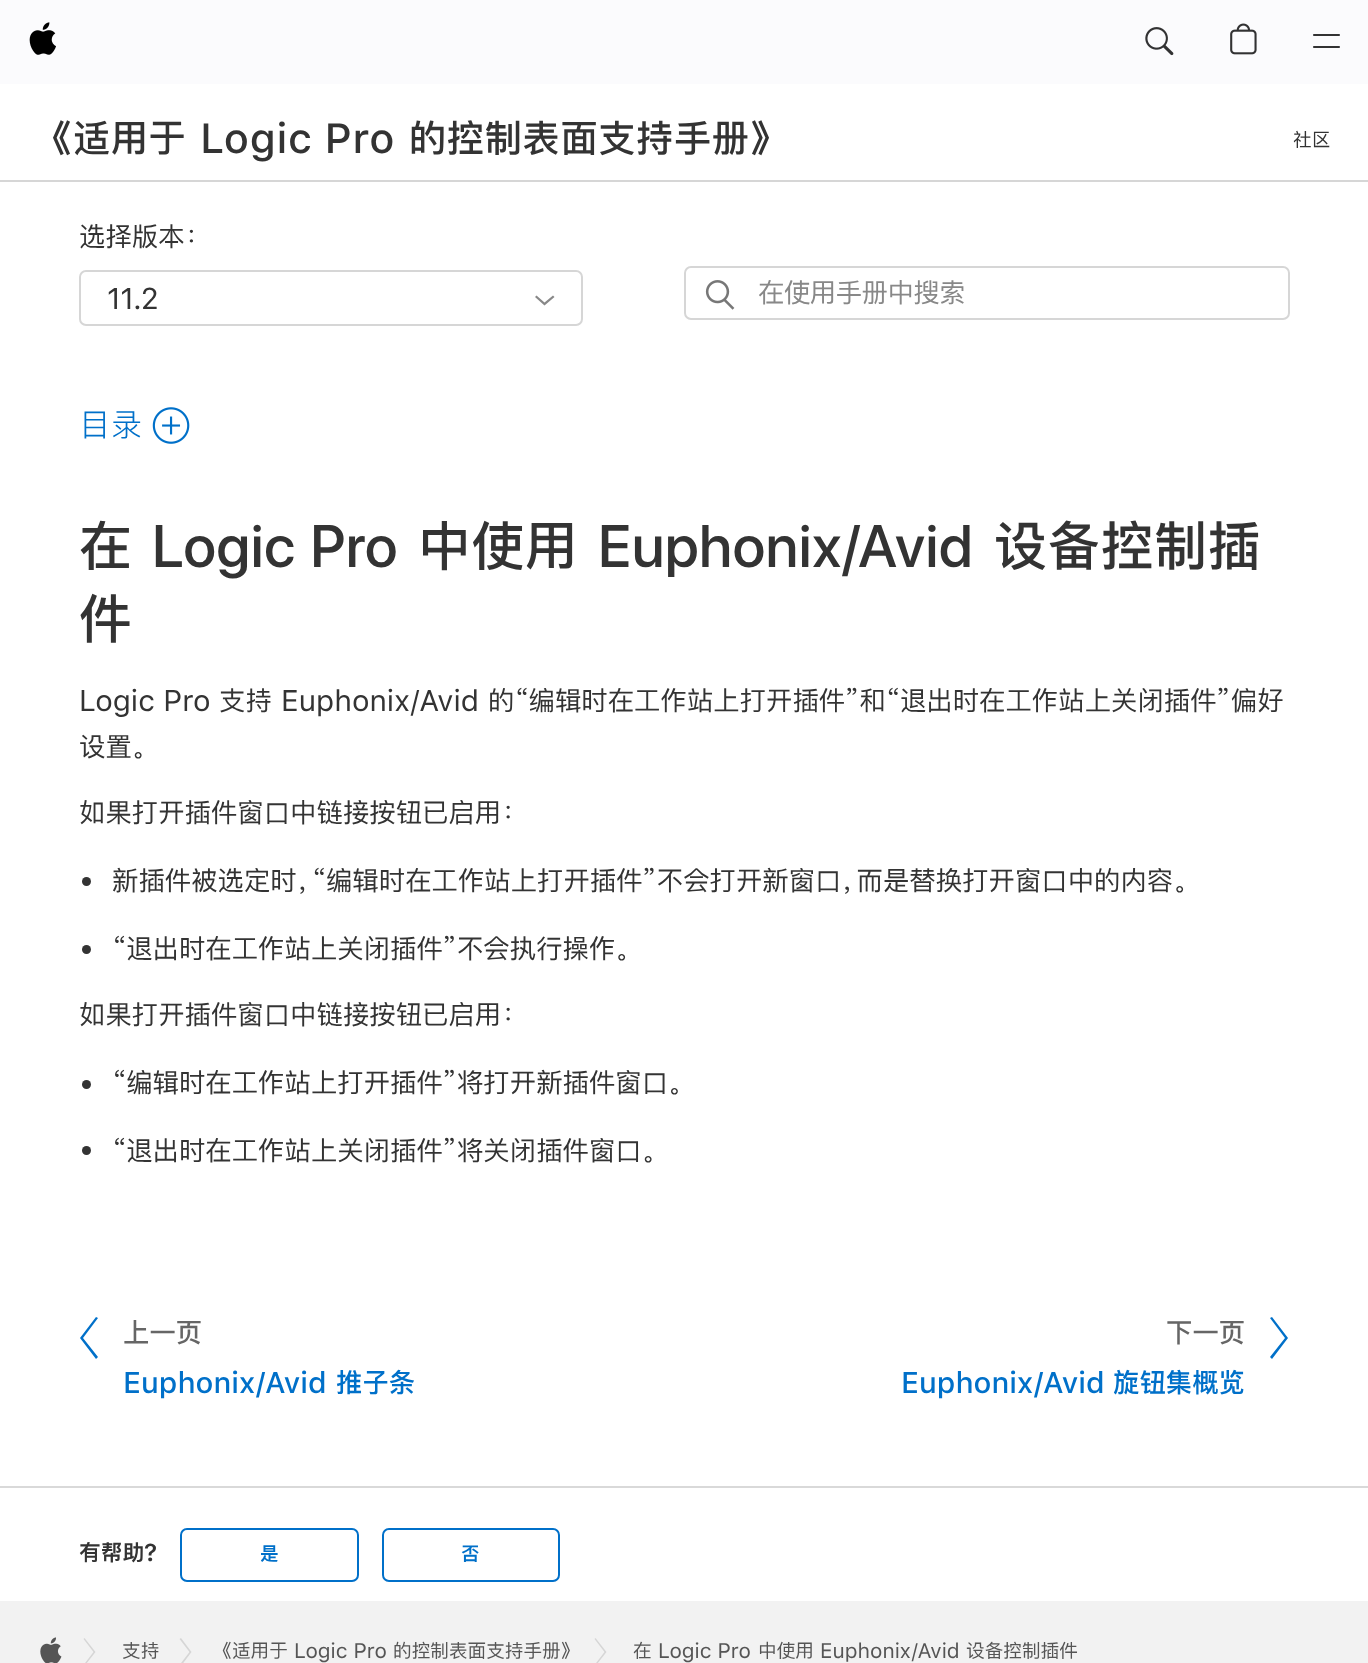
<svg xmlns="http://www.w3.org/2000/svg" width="1368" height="1663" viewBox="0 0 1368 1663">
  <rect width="100%" height="100%" fill="#fff"/>
  <path d="M0 0h1368v84H0z" fill="#fbfbfd"/>
  <image x="29" y="22" width="27" height="33" href="img/1.png"/>
  <image x="1145" y="27" width="29" height="29" href="img/2.png"/>
  <image x="1230" y="23" width="27" height="32" href="img/3.png"/>
  <path d="M1314 47H1339M1314 35H1339" fill="none" stroke="#323233" stroke-width="2.1" stroke-linecap="round" stroke-linejoin="round"/>
  <path d="M0 180h1368v2H0z" fill="#d6d6d6"/>
  <rect x="80" y="271" width="502" height="54" rx="6" fill="none" stroke="#d6d6d6" stroke-width="2"/>
  <path d="M536.5 295.5L535 297L544.5 305.5L554.5 297L553 295.5L544.5 302.5Z" fill="#888"/>
  <rect x="685" y="267" width="604" height="52" rx="6" fill="none" stroke="#d6d6d6" stroke-width="2"/>
  <image x="705" y="280" width="30" height="30" href="img/4.png"/>
  <image x="152" y="407" width="38" height="37" href="img/5.png"/>
  <circle cx="86.5" cy="881.5" r="4.5" fill="#333"/>
  <circle cx="86.5" cy="949.5" r="4.5" fill="#333"/>
  <circle cx="86.5" cy="1084.5" r="4.5" fill="#333"/>
  <circle cx="86.5" cy="1150.5" r="4.5" fill="#333"/>
  <path d="M96 1317L80 1338L96 1359L98 1357L83 1338L98 1318Z" fill="#0070c9"/>
  <path d="M1270 1318L1285 1338L1270 1357L1272 1359L1288 1338L1272 1317Z" fill="#0070c9"/>
  <path d="M0 1486h1368v2H0z" fill="#d9d9d9"/>
  <rect x="181" y="1529" width="177" height="52" rx="6" fill="none" stroke="#0070c9" stroke-width="2"/>
  <rect x="383" y="1529" width="176" height="52" rx="6" fill="none" stroke="#0070c9" stroke-width="2"/>
  <path d="M0 1601h1368v62H0z" fill="#f2f2f2"/>
  <image x="40" y="1637" width="22" height="26" href="img/6.png"/>
  <path d="M84.5 1638L95.5 1652L84.5 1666L83.5 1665L93.5 1652L83.5 1639Z" fill="#d6d6d6"/>
  <path d="M181 1638L191.5 1652L181 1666L179.5 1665L189.5 1652L179.5 1639Z" fill="#d6d6d6"/>
  <path d="M595.5 1638L606.5 1652L595.5 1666L594.5 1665L604.5 1652L594.5 1639Z" fill="#d6d6d6"/>
  <text x="44" y="153" font-family="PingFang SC" font-size="42" font-weight="500" letter-spacing="0.6" fill="#333">《适用于</text>
  <text x="200" y="153" font-family="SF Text" font-size="42" font-weight="500" letter-spacing="0.6" fill="#333">Logic Pro</text>
  <text x="409" y="153" font-family="PingFang SC" font-size="42" font-weight="500" letter-spacing="0.6" fill="#333">的控制表面支持手册》</text>
  <text x="1293" y="147" font-family="PingFang SC" font-size="21" fill="#333">社区</text>
  <text x="79" y="247" font-family="PingFang SC" font-size="29.75" fill="#333">选择版本：</text>
  <text x="107" y="309" font-family="SF Text" font-size="29.75" letter-spacing="-0.5" fill="#333">11.2</text>
  <text x="758" y="303" font-family="PingFang SC" font-size="29.75" letter-spacing="-0.5" fill="#888">在使用手册中搜索</text>
  <text x="79" y="437" font-family="PingFang SC" font-size="35" font-weight="300" letter-spacing="0.6" fill="#0070c9">目录</text>
  <text x="79" y="567" font-family="PingFang SC" font-size="59.5" font-weight="500" letter-spacing="0.6" fill="#333">在</text>
  <text x="152" y="567" word-spacing="2" font-family="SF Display" font-size="59.5" font-weight="500" letter-spacing="0.6" fill="#333">Logic Pro</text>
  <text x="418" y="567" font-family="PingFang SC" font-size="59.5" font-weight="500" letter-spacing="0.6" fill="#333">中使用</text>
  <text x="598" y="567" font-family="SF Display" font-size="59.5" font-weight="500" letter-spacing="0.6" fill="#333">Euphonix/Avid</text>
  <g font-family="PingFang SC" font-size="59.5" font-weight="500" letter-spacing="0.6" fill="#333">
    <text x="994" y="567">设备控制插</text>
    <text x="79" y="640">件</text>
  </g>
  <text x="79" y="711" font-family="SF Text" font-size="29.75" fill="#333">Logic Pro</text>
  <text x="219" y="711" font-family="PingFang SC" font-size="29.75" fill="#333">支持</text>
  <text x="281" y="711" font-family="SF Text" font-size="29.75" fill="#333">Euphonix/Avid</text>
  <g font-family="PingFang SC" font-size="29.75" fill="#333">
    <text x="488" y="711">的“编辑时在工作站上打开插件”和“退出时在工作站上关闭插件”偏好</text>
    <text x="79" y="757">设置。</text>
    <text x="79" y="823">如果打开插件窗口中链接按钮已启用：</text>
    <text x="112" y="891">新插件被选定时，“编辑时在工作站上打开插件”不会打开新窗口，而是替换打开窗口中的内容。</text>
    <text x="112" y="959">“退出时在工作站上关闭插件”不会执行操作。</text>
    <text x="79" y="1025">如果打开插件窗口中链接按钮已启用：</text>
    <text x="112" y="1093">“编辑时在工作站上打开插件”将打开新插件窗口。</text>
    <text x="112" y="1161">“退出时在工作站上关闭插件”将关闭插件窗口。</text>
  </g>
  <text x="123" y="1343" font-family="PingFang SC" font-size="29.75" font-weight="500" fill="#666">上一页</text>
  <text x="123" y="1393" font-family="SF Text" font-size="29.75" font-weight="500" fill="#0070c9">Euphonix/Avid</text>
  <text x="336" y="1393" font-family="PingFang SC" font-size="29.75" font-weight="500" fill="#0070c9">推子条</text>
  <text x="1166" y="1343" font-family="PingFang SC" font-size="29.75" font-weight="500" fill="#666">下一页</text>
  <text x="901" y="1393" font-family="SF Text" font-size="29.75" font-weight="500" fill="#0070c9">Euphonix/Avid</text>
  <text x="1113" y="1393" font-family="PingFang SC" font-size="29.75" font-weight="500" fill="#0070c9">旋钮集概览</text>
  <text x="79" y="1561" font-family="PingFang SC" font-size="24.5" font-weight="600" fill="#333">有帮助</text>
  <text x="144" y="1561" font-family="SF Text" font-size="24.5" font-weight="600" fill="#333">?</text>
  <g font-family="PingFang SC" font-size="21" font-weight="600" fill="#0070c9">
    <text x="260" y="1561">是</text>
    <text x="461" y="1561">否</text>
  </g>
  <g font-family="PingFang SC" font-size="21" fill="#555">
    <text x="122" y="1658">支持</text>
    <text x="218" y="1658">《适用于</text>
  </g>
  <text x="294" y="1658" font-family="SF Text" font-size="21" fill="#555">Logic Pro</text>
  <g font-family="PingFang SC" font-size="21" fill="#555">
    <text x="393" y="1658">的控制表面支持手册》</text>
    <text x="633" y="1658">在</text>
  </g>
  <text x="658" y="1658" font-family="SF Text" font-size="21" fill="#555">Logic Pro</text>
  <text x="758" y="1658" font-family="PingFang SC" font-size="21" fill="#555">中使用</text>
  <text x="820" y="1658" font-family="SF Text" font-size="21" fill="#555">Euphonix/Avid</text>
  <text x="966" y="1658" font-family="PingFang SC" font-size="21" fill="#555">设备控制插件</text>
</svg>
